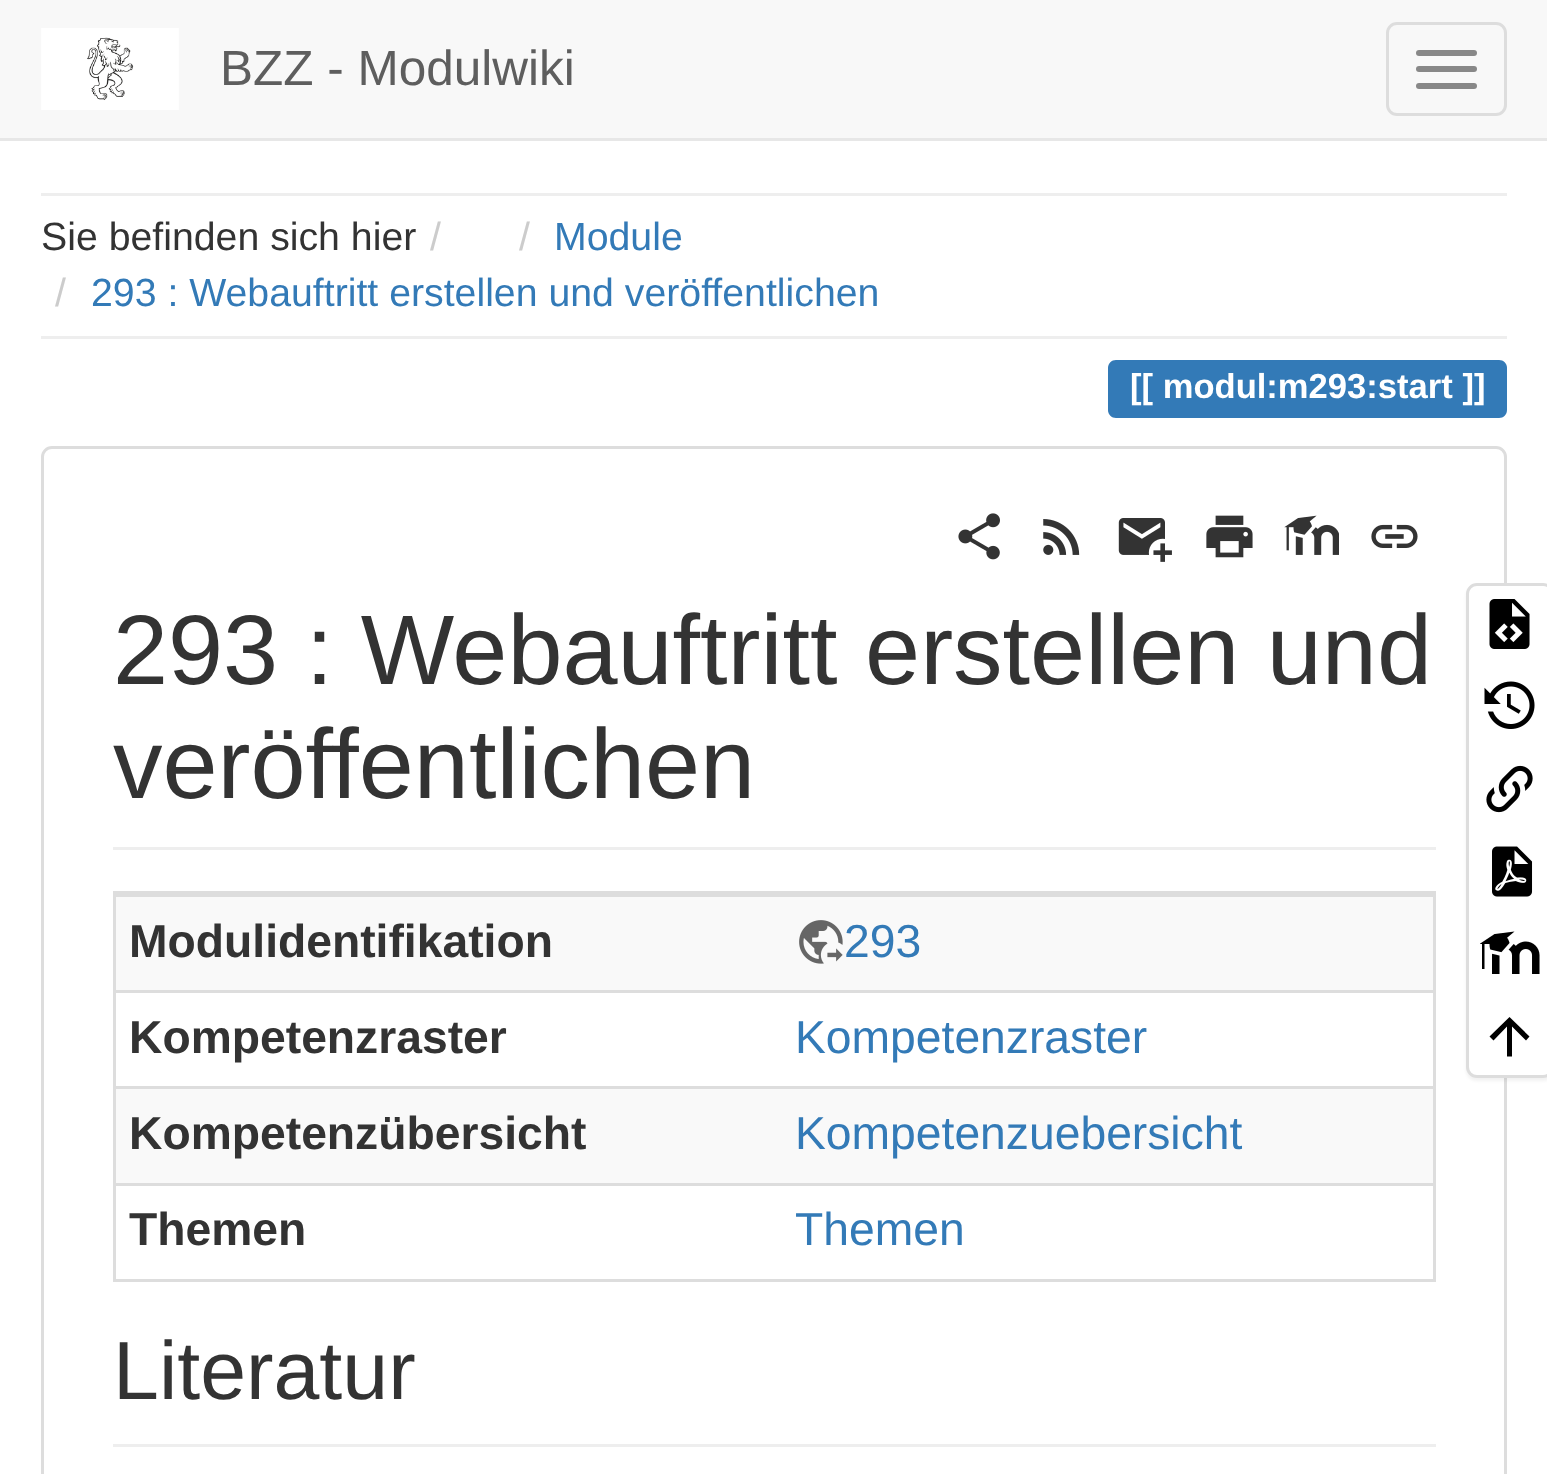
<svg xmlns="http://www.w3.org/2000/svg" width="1547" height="1474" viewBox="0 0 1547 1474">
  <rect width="100%" height="100%" fill="#fff"/>
  <path d="M0 0h1547v138H0z" fill="#f8f8f8"/>
  <path d="M0 138h1547v3H0z" fill="#e7e7e7"/>
  <image x="41" y="28" width="138" height="82" href="img/1.png"/>
  <rect x="1387.5" y="23.5" width="118" height="91" rx="9.5" fill="none" stroke="#ddd" stroke-width="3"/>
  <rect x="1416" y="50" width="61" height="6" rx="3" fill="#888"/>
  <rect x="1416" y="66" width="61" height="6" rx="3" fill="#888"/>
  <rect x="1416" y="83" width="61" height="6" rx="3" fill="#888"/>
  <path d="M41 193h1466v3H41z" fill="#eee"/>
  <path d="M41 336h1466v3H41z" fill="#eee"/>
  <path d="M1116 360H1163V418H1116C1111.5 418 1108 414.5 1108 410V368C1108 363.5 1111.5 360 1116 360Z" fill="#337ab7"/>
  <path d="M1163 360h292v58H1163z" fill="#337ab7"/>
  <path d="M1455 360H1499C1503.5 360 1507 363.5 1507 368V410C1507 414.5 1503.5 418 1499 418H1455Z" fill="#337ab7"/>
  <rect x="42.5" y="447.5" width="1463" height="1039" rx="9.5" fill="none" stroke="#ddd" stroke-width="3"/>
  <image x="958" y="513" width="42" height="47" href="img/2.png"/>
  <image x="1043" y="519" width="37" height="36" href="img/3.png"/>
  <image x="1118" y="518" width="54" height="44" href="img/4.png"/>
  <image x="1206" y="515" width="47" height="43" href="img/5.png"/>
  <image x="1284" y="515" width="55" height="40" href="img/6.png"/>
  <image x="1371" y="524" width="47" height="24" href="img/7.png"/>
  <path d="M113 847h1323v3H113z" fill="#eee"/>
  <path d="M114.5 892.5h1320v388H114.5z" fill="none" stroke="#ddd" stroke-width="3"/>
  <path d="M116 897h1317v93H116z" fill="#f9f9f9"/>
  <path d="M116 894h1317v3H116z" fill="#ddd"/>
  <image x="799" y="920" width="44" height="44" href="img/8.png"/>
  <path d="M116 990h1317v3H116z" fill="#ddd"/>
  <path d="M116 1089h1317v94H116z" fill="#f9f9f9"/>
  <path d="M116 1086h1317v3H116z" fill="#ddd"/>
  <path d="M116 1183h1317v3H116z" fill="#ddd"/>
  <path d="M113 1444h1323v3H113z" fill="#eee"/>
  <rect x="1466" y="586" width="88" height="495" rx="11" fill="#0000000d" filter="blur(1.5px)"/>
  <rect x="1467.5" y="584.5" width="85" height="492" rx="9.5" fill="#fff" stroke="#ddd" stroke-width="3"/>
  <image x="1489" y="599" width="41" height="50" href="img/9.png"/>
  <image x="1484" y="681" width="51" height="48" href="img/10.png"/>
  <image x="1486" y="765" width="47" height="48" href="img/11.png"/>
  <image x="1492" y="846" width="41" height="51" href="img/12.png"/>
  <image x="1480" y="931" width="60" height="43" href="img/13.png"/>
  <path d="M1512 1056.5H1507V1026.5L1493.5 1040.5L1489.5 1036.5L1509.5 1017L1529.5 1036.5L1526 1040.5L1512 1026.5Z" fill="#000"/>
  <text x="220" y="85" font-family="Liberation Sans" font-size="49.5" fill="#5e5e5e">BZZ - Modulwiki</text>
  <text x="41" y="250" font-family="Liberation Sans" font-size="39.25" fill="#333">Sie befinden sich hier</text>
  <g font-family="Liberation Sans" font-size="39.25" fill="#ccc">
    <text x="430" y="250">/</text>
    <text x="519" y="250">/</text>
  </g>
  <text x="554" y="250" font-family="Liberation Sans" font-size="39.25" fill="#337ab7">Module</text>
  <text x="55" y="306" font-family="Liberation Sans" font-size="39.25" fill="#ccc">/</text>
  <text x="91" y="306" font-family="Liberation Sans" font-size="39.25" fill="#337ab7">293 : Webauftritt erstellen und veröffentlichen</text>
  <text x="1130" y="398" font-family="Liberation Sans" font-size="34.6" font-weight="bold" fill="#fff">[[ modul:m293:start ]]</text>
  <g font-family="Liberation Sans" font-size="99" fill="#333">
    <text x="113" y="684">293 : Webauftritt erstellen und</text>
    <text x="113" y="798">veröffentlichen</text>
  </g>
  <text x="129" y="957" font-family="Liberation Sans" font-size="46.25" font-weight="bold" fill="#333">Modulidentifikation</text>
  <text x="844" y="957" font-family="Liberation Sans" font-size="46.25" fill="#337ab7">293</text>
  <text x="129" y="1053" font-family="Liberation Sans" font-size="46.25" font-weight="bold" fill="#333">Kompetenzraster</text>
  <text x="795" y="1053" font-family="Liberation Sans" font-size="46.25" fill="#337ab7">Kompetenzraster</text>
  <text x="129" y="1149" font-family="Liberation Sans" font-size="46.25" font-weight="bold" fill="#333">Kompetenzübersicht</text>
  <text x="795" y="1149" font-family="Liberation Sans" font-size="46.25" fill="#337ab7">Kompetenzuebersicht</text>
  <text x="129" y="1245" font-family="Liberation Sans" font-size="46.25" font-weight="bold" fill="#333">Themen</text>
  <text x="795" y="1245" font-family="Liberation Sans" font-size="46.25" fill="#337ab7">Themen</text>
  <text x="113" y="1399" font-family="Liberation Sans" font-size="82.5" fill="#333">Literatur</text>
</svg>
